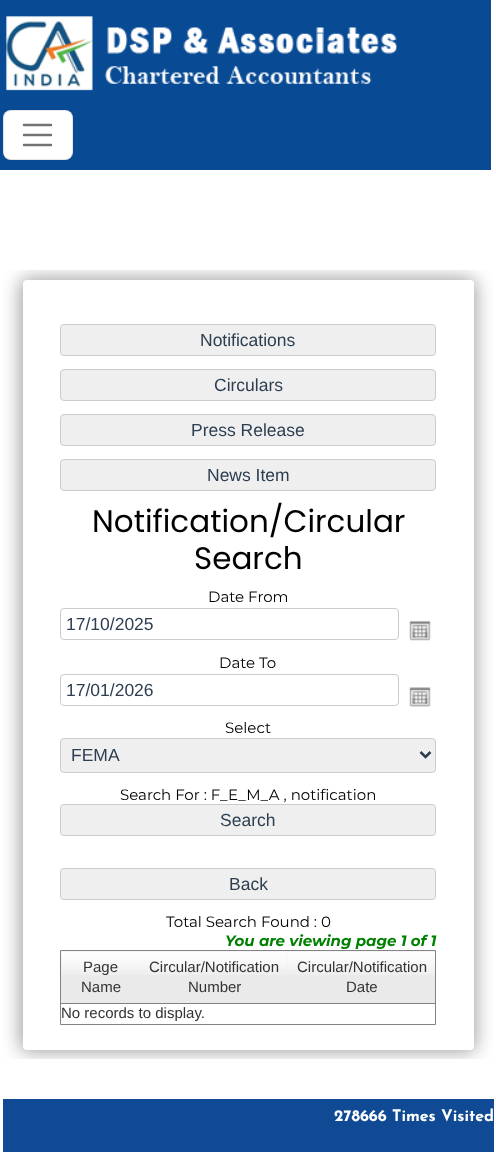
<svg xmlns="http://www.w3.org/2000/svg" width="496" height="1152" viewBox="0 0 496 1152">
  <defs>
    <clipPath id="clip1"><path d="M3 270h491v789H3z"/></clipPath>
  </defs>
  <rect width="100%" height="100%" fill="#fff"/>
  <path d="M0 0h491v170H0z" fill="#084a94"/>
  <image x="6" y="16" width="392" height="75" href="img/1.png"/>
  <rect x="3" y="110" width="70" height="50" rx="8" fill="#fff"/>
  <rect x="3.5" y="110.5" width="69" height="49" rx="7.5" fill="none" stroke="#0000001a"/>
  <path d="M24 125H51M24 135H51M24 145H51" fill="none" stroke="#737373" stroke-width="2.5" stroke-linecap="round"/>
  <g clip-path="url(#clip1)">
    <rect x="21" y="279" width="454" height="772" rx="5" fill="#00000066" filter="blur(9.5px)"/>
  </g>
  <rect x="23" y="280" width="451" height="770" rx="4" fill="#fff"/>
  <rect x="60.5" y="324.5" width="375" height="31" rx="3.5" fill="#efefef" stroke="#ccc"/>
  <rect x="60.5" y="369.5" width="375" height="31" rx="3.5" fill="#efefef" stroke="#ccc"/>
  <rect x="60.5" y="414.5" width="375" height="31" rx="3.5" fill="#efefef" stroke="#ccc"/>
  <rect x="60.5" y="459.5" width="375" height="31" rx="3.5" fill="#efefef" stroke="#ccc"/>
  <rect x="60.5" y="608.5" width="338" height="31" rx="3.5" fill="none" stroke="#ccc"/>
  <image x="409" y="620" width="22" height="21" href="img/2.png"/>
  <rect x="60.5" y="674.5" width="338" height="31" rx="3.5" fill="none" stroke="#ccc"/>
  <image x="409" y="687" width="22" height="20" href="img/3.png"/>
  <rect x="60.5" y="738.5" width="375" height="34" rx="3.5" fill="#efefef" stroke="#ccc"/>
  <path d="M420.5 752L425.5 757L430.5 752" fill="none" stroke="#2c3e50" stroke-width="2.5"/>
  <rect x="60.5" y="804.5" width="375" height="31" rx="3.5" fill="#efefef" stroke="#ccc"/>
  <rect x="60.5" y="868.5" width="375" height="31" rx="3.5" fill="#efefef" stroke="#ccc"/>
  <path d="M60.5 950.5h375v74H60.5z" fill="none" stroke="#828282"/>
  <path d="M61 951h374v52H61z" fill="#eaeaea"/>
  <image x="61" y="951" width="79" height="24" href="img/4.png"/>
  <path d="M61 1003h374v1H61z" fill="#828282"/>
  <image x="140" y="951" width="148" height="24" href="img/5.png"/>
  <image x="287" y="951" width="148" height="24" href="img/6.png"/>
  <path d="M3 1099h491v53H3z" fill="#104a94"/>
  <g font-family="Liberation Sans" font-size="17.5" fill="#2c3e50">
    <text x="200" y="346">Notifications</text>
    <text x="214" y="391">Circulars</text>
    <text x="191" y="436">Press Release</text>
    <text x="207" y="481">News Item</text>
  </g>
  <g font-family="Poppins" font-size="31" fill="#000">
    <text x="92" y="532">Notification/Circular</text>
    <text x="194" y="569">Search</text>
  </g>
  <text x="208" y="602" font-family="Montserrat" font-size="15" fill="#000">Date From</text>
  <text x="66" y="630" font-family="Liberation Sans" font-size="17.5" fill="#2c3e50">17/10/2025</text>
  <text x="219" y="668" font-family="Montserrat" font-size="15" fill="#000">Date To</text>
  <text x="66" y="696" font-family="Liberation Sans" font-size="17.5" fill="#2c3e50">17/01/2026</text>
  <text x="225" y="733" font-family="Montserrat" font-size="15" fill="#000">Select</text>
  <text x="71" y="761" font-family="Liberation Sans" font-size="17.5" fill="#2c3e50">FEMA</text>
  <text x="120" y="800" font-family="Montserrat" font-size="15" fill="#000">Search For : F_E_M_A , notification</text>
  <g font-family="Liberation Sans" font-size="17.5" fill="#2c3e50">
    <text x="220" y="826">Search</text>
    <text x="229" y="890">Back</text>
  </g>
  <text x="166" y="927" font-family="Montserrat" font-size="15" fill="#000">Total Search Found : 0</text>
  <text x="225" y="946" font-family="Montserrat" font-size="15" font-weight="bold" font-style="italic" fill="#008000">You are viewing page 1 of 1</text>
  <g font-family="Liberation Sans" font-size="15" fill="#333">
    <text x="83" y="972">Page</text>
    <text x="81" y="992">Name</text>
    <text x="149" y="972">Circular/Notification</text>
    <text x="188" y="992">Number</text>
    <text x="297" y="972">Circular/Notification</text>
    <text x="346" y="992">Date</text>
    <text x="61" y="1018">No records to display.</text>
  </g>
  <text x="334" y="1121" font-family="Josefin Sans" font-size="16" font-weight="bold" fill="#fff">278666 Times Visited</text>
</svg>
